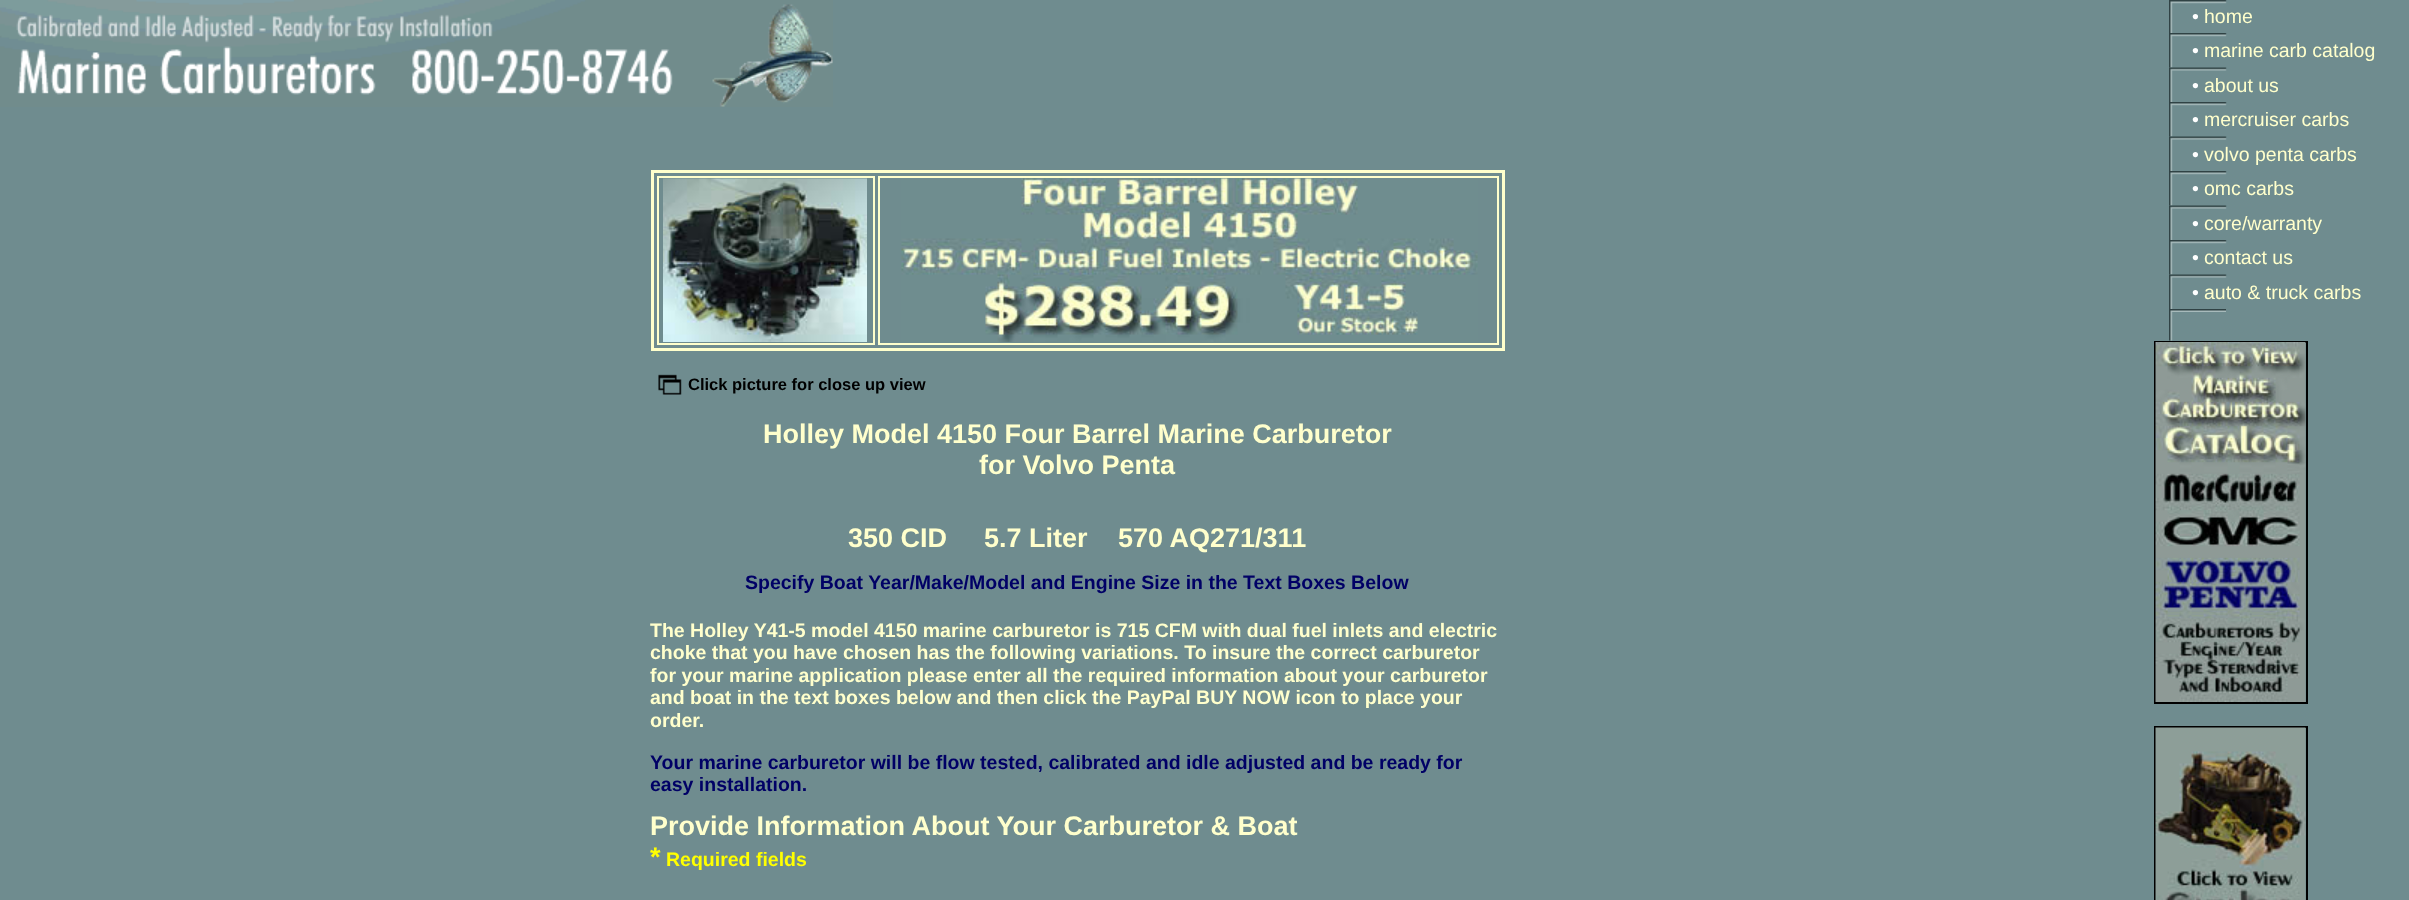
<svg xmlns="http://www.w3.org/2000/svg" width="2409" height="900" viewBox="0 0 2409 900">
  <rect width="100%" height="100%" fill="#6f8c8f"/>
  <image x="2169" y="0" width="58" height="33" href="img/1.png"/>
  <image x="2169" y="33" width="58" height="35" href="img/2.png"/>
  <image x="2169" y="67" width="58" height="35" href="img/3.png"/>
  <image x="2169" y="102" width="58" height="35" href="img/2.png"/>
  <image x="2169" y="136" width="58" height="35" href="img/3.png"/>
  <image x="2169" y="171" width="58" height="35" href="img/2.png"/>
  <image x="2169" y="205" width="58" height="35" href="img/3.png"/>
  <image x="2169" y="240" width="58" height="35" href="img/2.png"/>
  <image x="2169" y="274" width="58" height="35" href="img/3.png"/>
  <image x="2169" y="309" width="57" height="3" href="img/4.png"/>
  <image x="2169" y="312" width="4" height="29" href="img/5.png"/>
  <path d="M2154 341h153v2H2154z" fill="#000"/>
  <path d="M2306 341h2v363H2306z" fill="#000"/>
  <path d="M2154 702h153v2H2154z" fill="#000"/>
  <path d="M2154 341h2v363H2154z" fill="#000"/>
  <image x="2155" y="342" width="151" height="360" href="img/6.png"/>
  <path d="M2154 726h153v2H2154z" fill="#000"/>
  <path d="M2306 726h2v174H2306z" fill="#000"/>
  <path d="M2154 726h2v174H2154z" fill="#000"/>
  <image x="2155" y="727" width="151" height="173" href="img/7.png"/>
  <image x="0" y="0" width="833" height="107" href="img/8.png"/>
  <path d="M652.5 171.5h851v178H652.5z" fill="none" stroke="#ffc" stroke-width="3"/>
  <path d="M658 177h216v167H658z" fill="none" stroke="#ffc" stroke-width="2"/>
  <image x="663" y="178" width="204" height="164" href="img/9.png"/>
  <path d="M879 177h619v167H879z" fill="none" stroke="#ffc" stroke-width="2"/>
  <image x="901" y="178" width="577" height="164" href="img/10.png"/>
  <image x="658" y="374" width="24" height="21" href="img/11.png"/>
  <text x="2192" y="23" font-family="Liberation Sans" font-size="19.5" fill="#fff">•</text>
  <text x="2204" y="23" font-family="Liberation Sans" font-size="19.5" fill="#ffc">home</text>
  <text x="2192" y="57" font-family="Liberation Sans" font-size="19.5" fill="#fff">•</text>
  <text x="2204" y="57" font-family="Liberation Sans" font-size="19.5" fill="#ffc">marine carb catalog</text>
  <text x="2192" y="92" font-family="Liberation Sans" font-size="19.5" fill="#fff">•</text>
  <text x="2204" y="92" font-family="Liberation Sans" font-size="19.5" fill="#ffc">about us</text>
  <text x="2192" y="126" font-family="Liberation Sans" font-size="19.5" fill="#fff">•</text>
  <text x="2204" y="126" font-family="Liberation Sans" font-size="19.5" fill="#ffc">mercruiser carbs</text>
  <text x="2192" y="161" font-family="Liberation Sans" font-size="19.5" fill="#fff">•</text>
  <text x="2204" y="161" font-family="Liberation Sans" font-size="19.5" fill="#ffc">volvo penta carbs</text>
  <text x="2192" y="195" font-family="Liberation Sans" font-size="19.5" fill="#fff">•</text>
  <text x="2204" y="195" font-family="Liberation Sans" font-size="19.5" fill="#ffc">omc carbs</text>
  <text x="2192" y="230" font-family="Liberation Sans" font-size="19.5" fill="#fff">•</text>
  <text x="2204" y="230" font-family="Liberation Sans" font-size="19.5" fill="#ffc">core/warranty</text>
  <text x="2192" y="264" font-family="Liberation Sans" font-size="19.5" fill="#fff">•</text>
  <text x="2204" y="264" font-family="Liberation Sans" font-size="19.5" fill="#ffc">contact us</text>
  <text x="2192" y="299" font-family="Liberation Sans" font-size="19.5" fill="#fff">•</text>
  <text x="2204" y="299" font-family="Liberation Sans" font-size="19.5" fill="#ffc">auto &amp; truck carbs</text>
  <text x="688" y="390" font-family="Liberation Sans" font-size="16.5" font-weight="bold" fill="#000">Click picture for close up view</text>
  <g font-family="Liberation Sans" font-size="27" font-weight="bold" fill="#ffc">
    <text x="763" y="443">Holley Model 4150 Four Barrel Marine Carburetor</text>
    <text x="979" y="474">for Volvo Penta</text>
    <text x="848" y="547">350 CID</text>
    <text x="984" y="547">5.7 Liter</text>
    <text x="1118" y="547">570 AQ271/311</text>
  </g>
  <text x="745" y="589" font-family="Liberation Sans" font-size="19.5" font-weight="bold" fill="#006">Specify Boat Year/Make/Model and Engine Size in the Text Boxes Below</text>
  <g font-family="Liberation Sans" font-size="19.5" font-weight="bold" fill="#ffc">
    <text x="650" y="637">The Holley Y41-5 model 4150 marine carburetor is 715 CFM with dual fuel inlets and electric</text>
    <text x="650" y="659">choke that you have chosen has the following variations. To insure the correct carburetor</text>
    <text x="650" y="682">for your marine application please enter all the required information about your carburetor</text>
    <text x="650" y="704">and boat in the text boxes below and then click the PayPal BUY NOW icon to place your</text>
    <text x="650" y="727">order.</text>
  </g>
  <g font-family="Liberation Sans" font-size="19.5" font-weight="bold" fill="#006">
    <text x="650" y="769">Your marine carburetor will be flow tested, calibrated and idle adjusted and be ready for</text>
    <text x="650" y="791">easy installation.</text>
  </g>
  <text x="650" y="835" font-family="Liberation Sans" font-size="27" font-weight="bold" fill="#ffc">Provide Information About Your Carburetor &amp; Boat</text>
  <text x="650" y="866" font-family="Liberation Sans" font-size="27" font-weight="bold" fill="#ff0">*</text>
  <text x="666" y="866" font-family="Liberation Sans" font-size="19.5" font-weight="bold" fill="#ff0">Required fields</text>
</svg>
